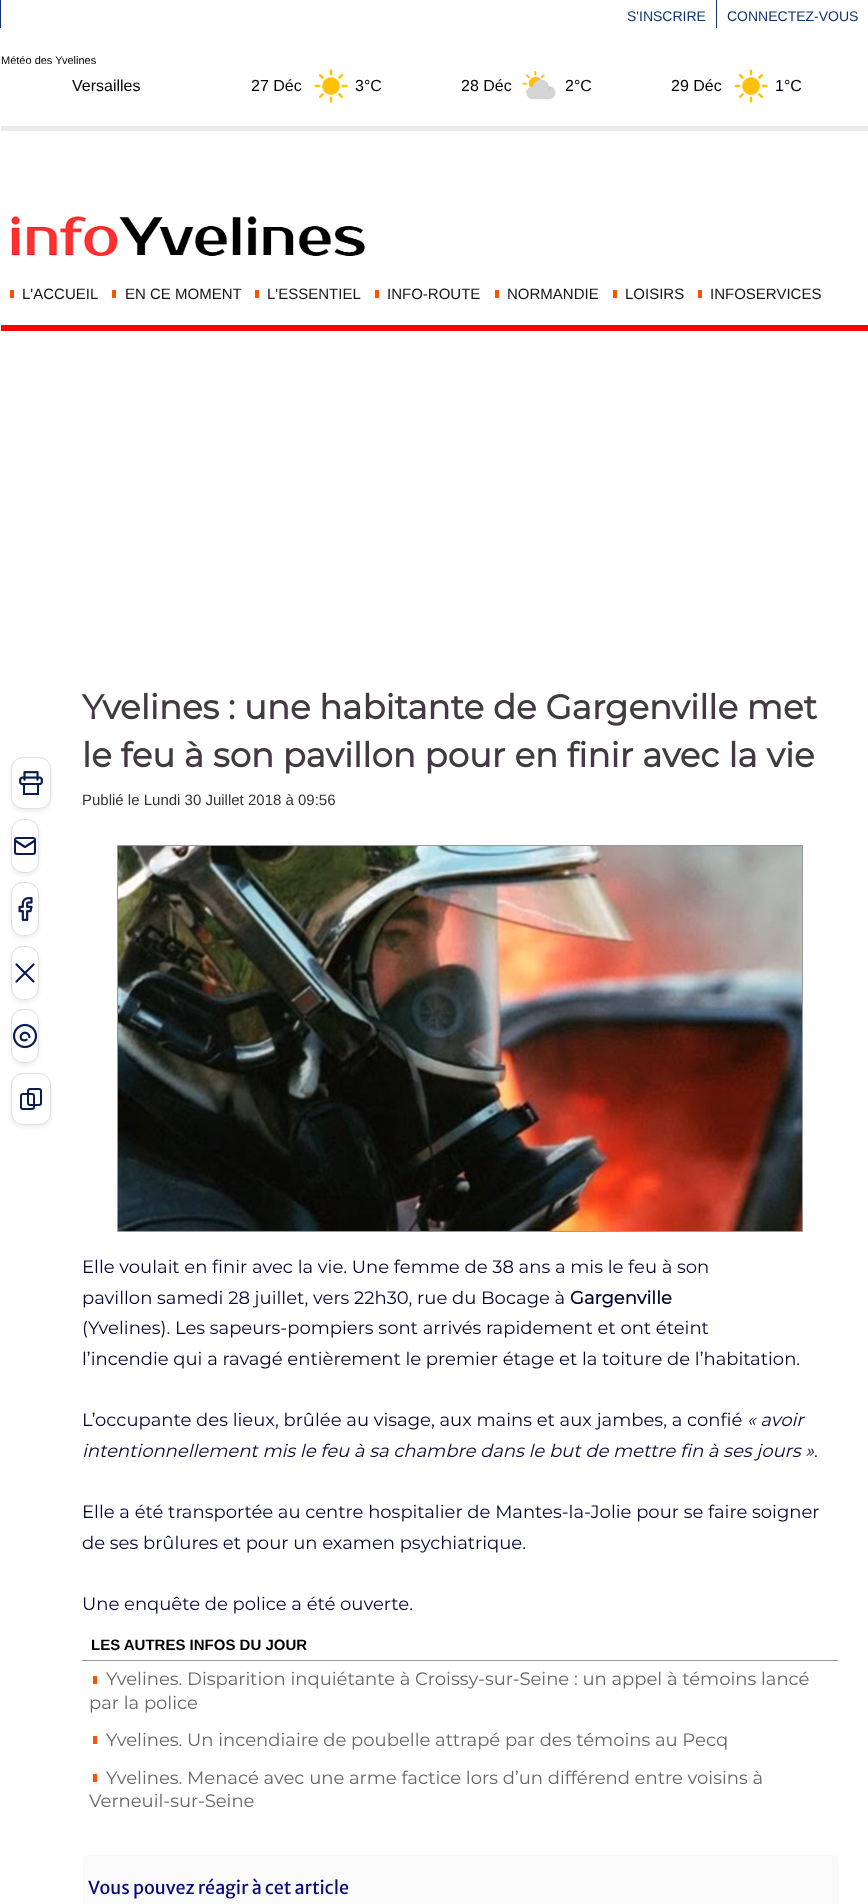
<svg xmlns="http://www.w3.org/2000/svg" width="868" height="1904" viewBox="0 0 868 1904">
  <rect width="100%" height="100%" fill="#fff"/>
  <path d="M0 0h1v28H0z" fill="#0f3375"/>
  <path d="M716 0h1v28H716z" fill="#0f3375"/>
  <image x="314" y="69" width="34" height="34" href="img/1.png"/>
  <image x="522" y="71" width="34" height="29" href="img/2.png"/>
  <image x="734" y="69" width="34" height="34" href="img/1.png"/>
  <path d="M1 126h867v5H1z" fill="#ebebeb"/>
  <image x="11" y="216" width="354" height="40" href="img/3.png"/>
  <path d="M10 290h4v8H10z" fill="#ff5300"/>
  <path d="M112 290h4v8H112z" fill="#ff5300"/>
  <path d="M255 290h4v8H255z" fill="#ff5300"/>
  <path d="M375 290h4v8H375z" fill="#ff5300"/>
  <path d="M495 290h4v8H495z" fill="#ff5300"/>
  <path d="M613 290h4v8H613z" fill="#ff5300"/>
  <path d="M698 290h4v8H698z" fill="#ff5300"/>
  <path d="M1 325h867v6H1z" fill="#f00"/>
  <rect x="11" y="759" width="40" height="52" rx="12" fill="#00000014" filter="blur(2px)"/>
  <rect x="11" y="757" width="40" height="52" rx="12" fill="#fff"/>
  <rect x="11.5" y="757.5" width="39" height="51" rx="11.5" fill="none" stroke="#0000001f"/>
  <image x="19" y="771" width="24" height="24" href="img/4.png"/>
  <rect x="11" y="821" width="28" height="54" rx="12" fill="#00000014" filter="blur(2px)"/>
  <rect x="11" y="819" width="28" height="54" rx="12" fill="#fff"/>
  <rect x="11.5" y="819.5" width="27" height="53" rx="11.5" fill="none" stroke="#0000001f"/>
  <rect x="15" y="838" width="20" height="16" rx="2" fill="none" stroke="#0b1c52" stroke-width="2"/>
  <path d="M15 840.5L25 847L35 840.5" fill="none" stroke="#0b1c52" stroke-width="2.2" stroke-linecap="round" stroke-linejoin="round"/>
  <rect x="11" y="884" width="28" height="54" rx="12" fill="#00000014" filter="blur(2px)"/>
  <rect x="11" y="882" width="28" height="54" rx="12" fill="#fff"/>
  <rect x="11.5" y="882.5" width="27" height="53" rx="11.5" fill="none" stroke="#0000001f"/>
  <image x="18" y="897" width="15" height="24" href="img/5.png"/>
  <rect x="11" y="948" width="28" height="54" rx="12" fill="#00000014" filter="blur(2px)"/>
  <rect x="11" y="946" width="28" height="54" rx="12" fill="#fff"/>
  <rect x="11.5" y="946.5" width="27" height="53" rx="11.5" fill="none" stroke="#0000001f"/>
  <path d="M16.5 964.5L33.5 981.5M33.5 964.5L16.5 981.5" fill="none" stroke="#0b1c52" stroke-width="2.2" stroke-linecap="round" stroke-linejoin="round"/>
  <rect x="11" y="1011" width="28" height="54" rx="12" fill="#00000014" filter="blur(2px)"/>
  <rect x="11" y="1009" width="28" height="54" rx="12" fill="#fff"/>
  <rect x="11.5" y="1009.5" width="27" height="53" rx="11.5" fill="none" stroke="#0000001f"/>
  <image x="12" y="1023" width="26" height="26" href="img/6.png"/>
  <rect x="11" y="1075" width="40" height="52" rx="12" fill="#00000014" filter="blur(2px)"/>
  <rect x="11" y="1073" width="40" height="52" rx="12" fill="#fff"/>
  <rect x="11.5" y="1073.5" width="39" height="51" rx="11.5" fill="none" stroke="#0000001f"/>
  <rect x="28" y="1089" width="13" height="16" rx="2" fill="none" stroke="#0b1c52" stroke-width="2"/>
  <rect x="21" y="1094" width="13" height="15" rx="2" fill="none" stroke="#0b1c52" stroke-width="2"/>
  <path d="M117.5 845.5h685v386H117.5z" fill="none" stroke="#999"/>
  <image x="118" y="846" width="684" height="385" href="img/7.png"/>
  <path d="M82 1660h756v1H82z" fill="#999"/>
  <path d="M93 1676h4v8H93z" fill="#ff5300"/>
  <path d="M93 1736h4v8H93z" fill="#ff5300"/>
  <path d="M93 1774h4v8H93z" fill="#ff5300"/>
  <rect x="83" y="1855" width="756" height="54" rx="5" fill="#fafafa"/>
  <g font-family="Liberation Sans" font-size="14" fill="#0f3375">
    <text x="627" y="21">S'INSCRIRE</text>
    <text x="727" y="21">CONNECTEZ-VOUS</text>
  </g>
  <text x="1" y="64" font-family="Liberation Sans" font-size="11" fill="#000">Météo des Yvelines</text>
  <g font-family="Liberation Sans" font-size="16" fill="#000">
    <text x="72" y="91">Versailles</text>
    <text x="251" y="91">27 Déc</text>
    <text x="355" y="91">3°C</text>
    <text x="461" y="91">28 Déc</text>
    <text x="565" y="91">2°C</text>
    <text x="671" y="91">29 Déc</text>
    <text x="775" y="91">1°C</text>
  </g>
  <g font-family="Liberation Sans" font-size="15" fill="#151515">
    <text x="22" y="299">L'ACCUEIL</text>
    <text x="125" y="299">EN CE MOMENT</text>
    <text x="267" y="299">L'ESSENTIEL</text>
    <text x="387" y="299">INFO-ROUTE</text>
    <text x="507" y="299">NORMANDIE</text>
    <text x="625" y="299">LOISIRS</text>
    <text x="710" y="299">INFOSERVICES</text>
  </g>
  <g font-family="Montserrat" font-size="34" font-weight="bold" fill="#423942">
    <text x="82" y="719">Yvelines : une habitante de Gargenville met</text>
    <text x="82" y="767">le feu à son pavillon pour en finir avec la vie</text>
  </g>
  <text x="82" y="805" font-family="Liberation Sans" font-size="15" fill="#333">Publié le Lundi 30 Juillet 2018 à 09:56</text>
  <g font-family="Montserrat" font-size="18" font-weight="100" fill="#040430">
    <text x="82" y="1273">Elle voulait en finir avec la vie. Une femme de 38 ans a mis le feu à son</text>
    <text x="82" y="1304">pavillon samedi 28 juillet, vers 22h30, rue du Bocage à</text>
  </g>
  <text x="570" y="1304" font-family="Montserrat" font-size="18" font-weight="bold" fill="#040430">Gargenville</text>
  <g font-family="Montserrat" font-size="18" font-weight="100" fill="#040430">
    <text x="82" y="1334">(Yvelines). Les sapeurs-pompiers sont arrivés rapidement et ont éteint</text>
    <text x="82" y="1365">l’incendie qui a ravagé entièrement le premier étage et la toiture de l’habitation.</text>
    <text x="82" y="1426">L’occupante des lieux, brûlée au visage, aux mains et aux jambes, a confié</text>
  </g>
  <g font-family="Montserrat" font-size="18" font-weight="100" font-style="italic" fill="#040430">
    <text x="747" y="1426">« avoir</text>
    <text x="82" y="1457">intentionnellement mis le feu à sa chambre dans le but de mettre fin à ses jours »</text>
  </g>
  <g font-family="Montserrat" font-size="18" font-weight="100" fill="#040430">
    <text x="814" y="1457">.</text>
    <text x="82" y="1518">Elle a été transportée au centre hospitalier de Mantes-la-Jolie pour se faire soigner</text>
    <text x="82" y="1549">de ses brûlures et pour un examen psychiatrique.</text>
    <text x="82" y="1610">Une enquête de police a été ouverte.</text>
  </g>
  <text x="91" y="1650" font-family="Liberation Sans" font-size="15" font-weight="bold" fill="#000">LES AUTRES INFOS DU JOUR</text>
  <g font-family="Montserrat" font-size="18" font-weight="100" fill="#666">
    <text x="106" y="1685">Yvelines. Disparition inquiétante à Croissy-sur-Seine : un appel à témoins lancé</text>
    <text x="89" y="1709">par la police</text>
    <text x="106" y="1746">Yvelines. Un incendiaire de poubelle attrapé par des témoins au Pecq</text>
    <text x="106" y="1784">Yvelines. Menacé avec une arme factice lors d’un différend entre voisins à</text>
    <text x="89" y="1807">Verneuil-sur-Seine</text>
  </g>
  <text x="88" y="1894" font-family="Merriweather Sans" font-size="18" fill="#09097a">Vous pouvez réagir à cet article</text>
</svg>
